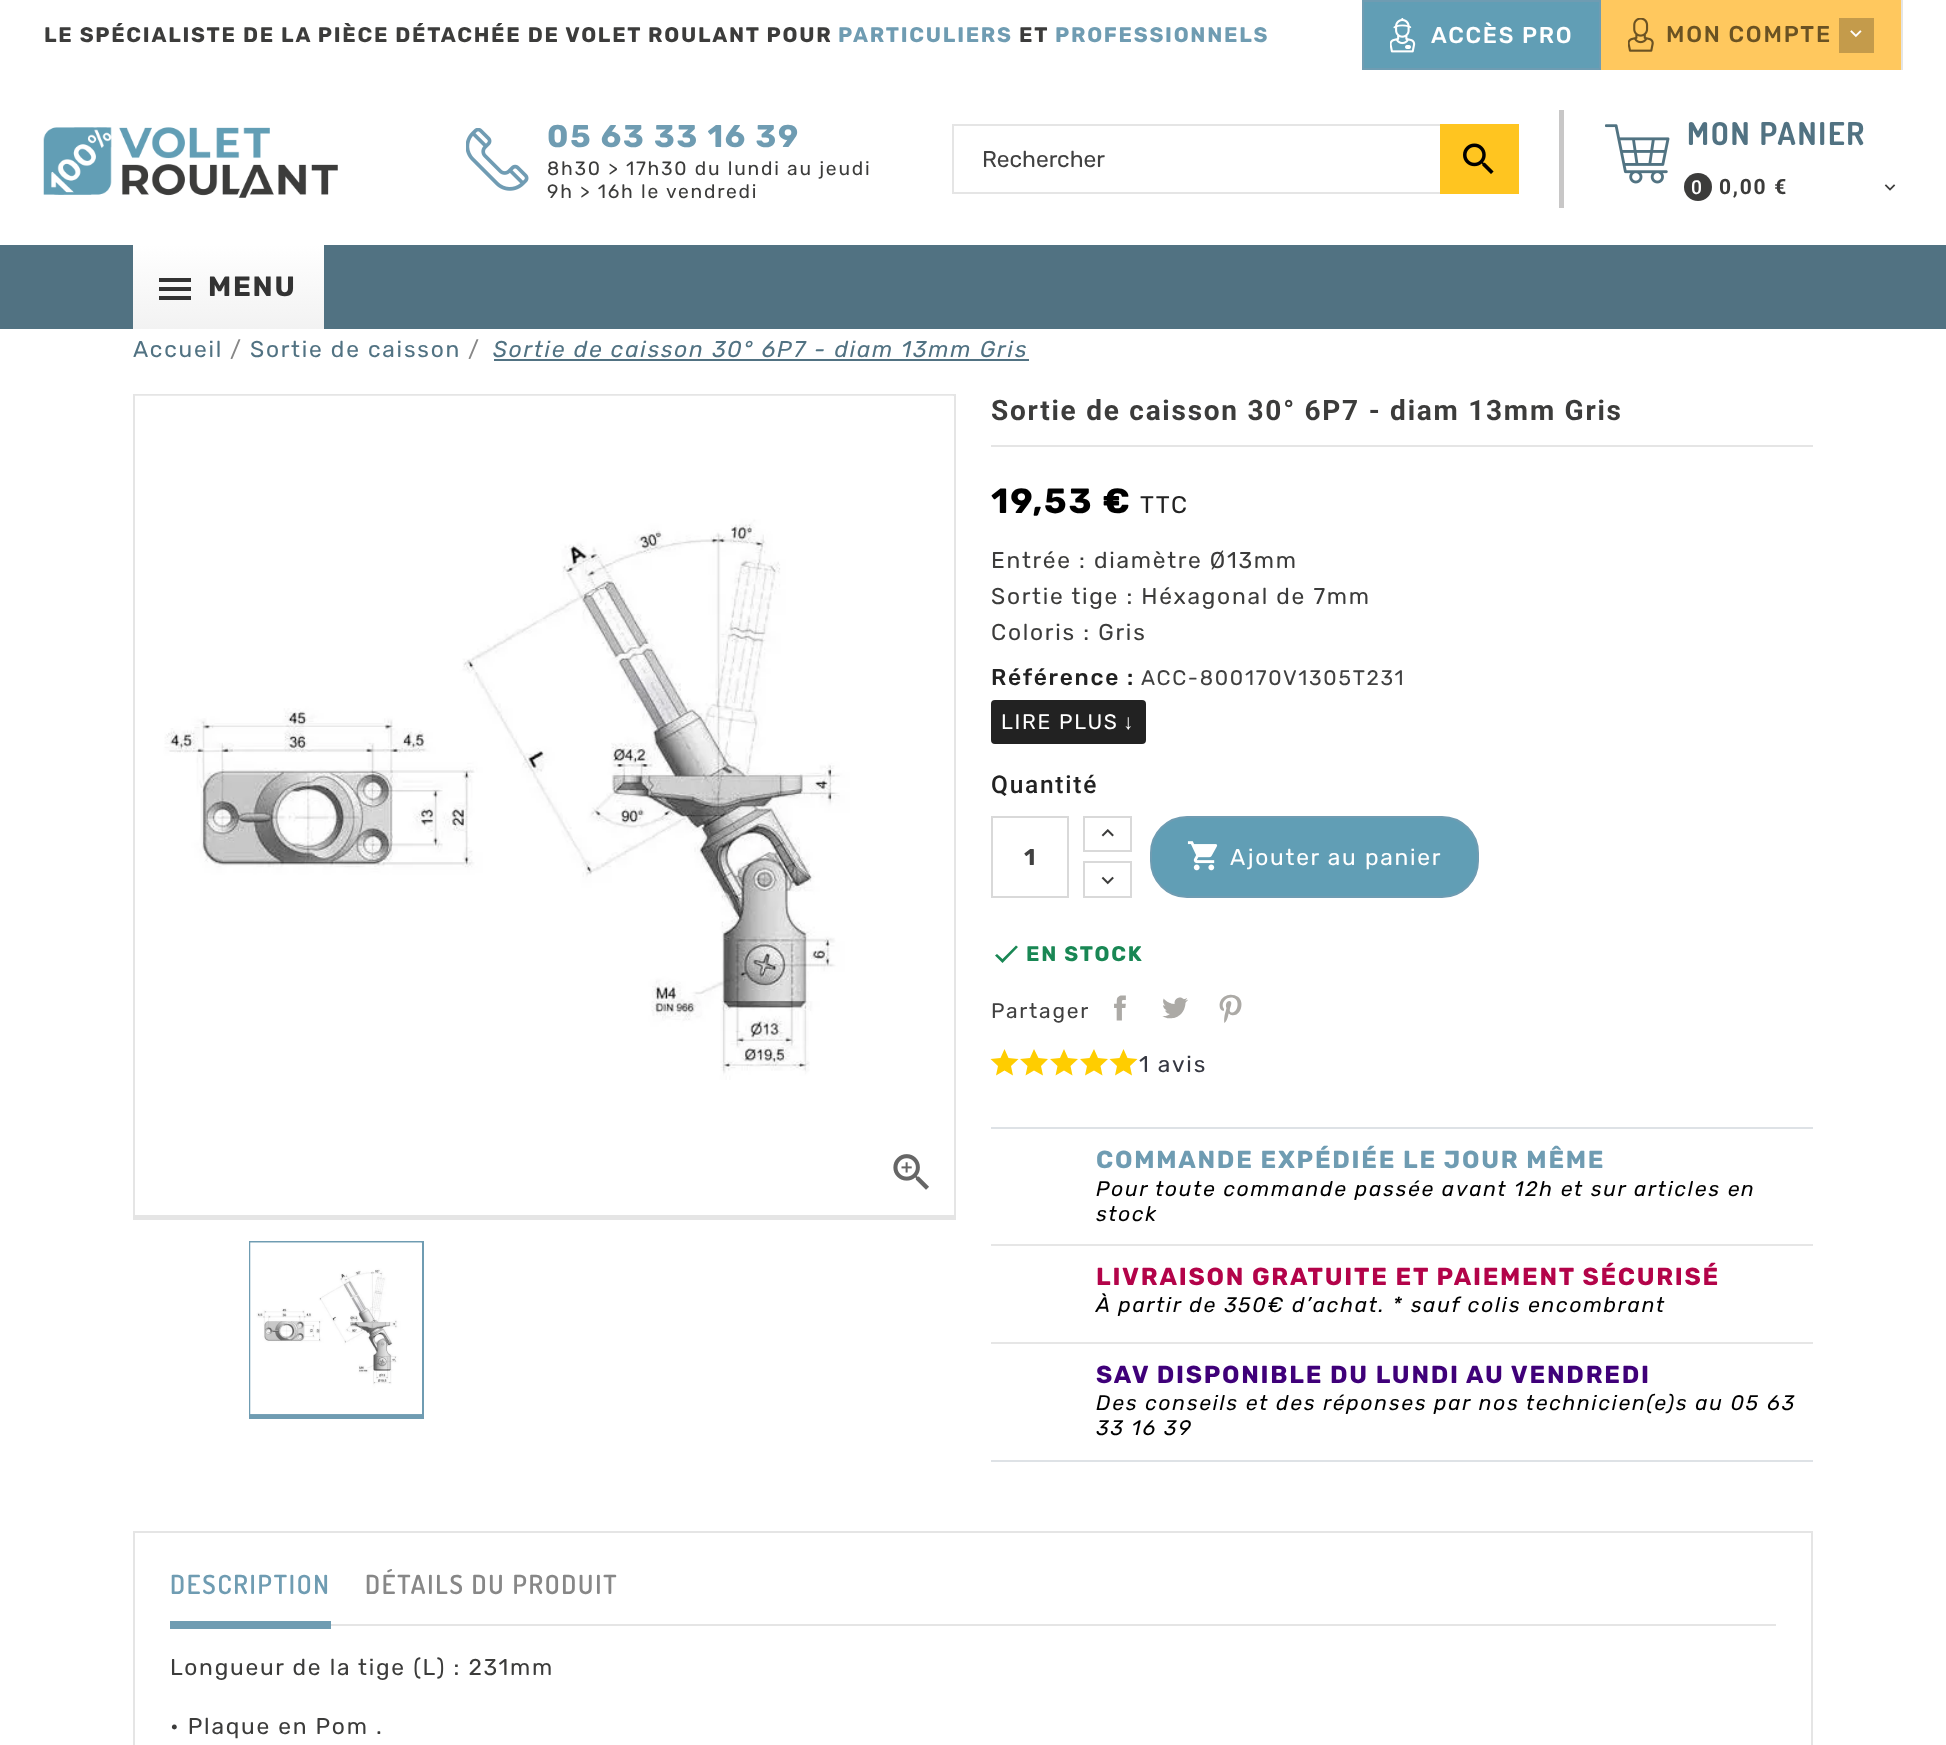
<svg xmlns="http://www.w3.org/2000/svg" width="1946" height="1745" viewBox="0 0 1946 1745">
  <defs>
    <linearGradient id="g1" gradientUnits="userSpaceOnUse" x1="228" y1="245" x2="228" y2="329"><stop offset="0" stop-color="#fff"/><stop offset="1" stop-color="#f2f2f2"/></linearGradient>
  </defs>
  <rect width="100%" height="100%" fill="#fff"/>
  <path d="M1363 1h237v68H1363z" fill="#619eb5" stroke="#6f9cb2" stroke-width="2"/>
  <image x="1390" y="18" width="26" height="35" href="img/1.png"/>
  <path d="M1901 0h2v70H1901z" fill="#e5e5e5"/>
  <path d="M1601 0h300v70H1601z" fill="#ffc85e"/>
  <image x="1628" y="18" width="26" height="34" href="img/2.png"/>
  <path d="M1839 18h35v35H1839z" fill="#c49b4b"/>
  <image x="1850" y="30" width="12" height="8" href="img/3.png"/>
  <image x="43" y="127" width="295" height="71" href="img/4.png"/>
  <image x="466" y="128" width="63" height="63" href="img/5.png"/>
  <path d="M1559 110h5v98H1559z" fill="#c8c7c7"/>
  <path d="M953 125h565v68H953z" fill="none" stroke="#e5e5e5" stroke-width="2"/>
  <path d="M1440 124h79v70H1440z" fill="#ffc520"/>
  <image x="1463" y="143" width="31" height="31" href="img/6.png"/>
  <image x="1605" y="124" width="65" height="60" href="img/7.png"/>
  <circle cx="1698" cy="187" r="14" fill="#3c3c3b"/>
  <image x="1884" y="184" width="12" height="7" href="img/8.png"/>
  <path d="M0 245h1946v84H0z" fill="#517282"/>
  <path d="M133 245h191v84H133z" fill="url(#g1)"/>
  <path d="M159 278h32v4H159z" fill="#333"/>
  <path d="M159 287h32v4H159z" fill="#333"/>
  <path d="M159 296h32v4H159z" fill="#333"/>
  <path d="M494 359h535v2H494z" fill="#517282"/>
  <path d="M133 394h823v2H133z" fill="#e5e5e5"/>
  <path d="M954 394h2v826H954z" fill="#e5e5e5"/>
  <path d="M133 1215h823v5H133z" fill="#e5e5e5"/>
  <path d="M133 394h2v826H133z" fill="#e5e5e5"/>
  <image x="135" y="395" width="818" height="685" href="img/9.png"/>
  <image x="893" y="1154" width="36" height="36" href="img/10.png"/>
  <path d="M249 1241h175v2H249z" fill="#6f9cb2"/>
  <path d="M422 1241h2v178H422z" fill="#6f9cb2"/>
  <path d="M249 1414h175v5H249z" fill="#6f9cb2"/>
  <path d="M249 1241h2v178H249z" fill="#6f9cb2"/>
  <image x="250" y="1242" width="172" height="173" href="img/11.png"/>
  <path d="M991 445h822v2H991z" fill="#e5e5e5"/>
  <rect x="992" y="701" width="153" height="42" rx="3" fill="#222" stroke="#222" stroke-width="2"/>
  <path d="M992 817h76v80H992z" fill="none" stroke="#d9d9d9" stroke-width="2"/>
  <path d="M1084 817h47v34H1084z" fill="none" stroke="#d9d9d9" stroke-width="2"/>
  <image x="1101" y="829" width="13" height="8" href="img/12.png"/>
  <path d="M1084 862h47v35H1084z" fill="none" stroke="#d9d9d9" stroke-width="2"/>
  <image x="1101" y="876" width="13" height="9" href="img/13.png"/>
  <rect x="1151" y="817" width="327" height="80" rx="36" fill="#619eb5" stroke="#6f9cb2" stroke-width="2"/>
  <image x="1187" y="841" width="31" height="30" href="img/14.png"/>
  <path d="M1002.5 959L1016 945.5L1018 947L1002.5 963L995 955.5L997 954Z" fill="#198754"/>
  <image x="1114" y="995" width="12" height="26" href="img/15.png"/>
  <image x="1162" y="997" width="26" height="22" href="img/16.png"/>
  <image x="1219" y="994" width="23" height="29" href="img/17.png"/>
  <path d="M1004.5 1049L1000.5 1058L990.5 1059L998 1066L996 1075.5L1004.5 1070.5L1013 1075.5L1011 1066L1018.5 1059L1008.5 1058ZM1034 1049L1030 1058L1020 1059L1027.5 1066L1025.5 1075.5L1034 1070.5L1043 1075.5L1041 1066L1048 1059L1038.5 1058Z" fill="#ffcd00"/>
  <path d="M1064 1049L1060 1058L1050 1059L1057.5 1066L1055.5 1075.5L1064 1070.5L1072.5 1075.5L1070.5 1066L1078 1059L1068 1058ZM1094 1049L1089.5 1058L1080 1059L1087 1066L1085 1075.5L1094 1070.5L1102.5 1075.5L1100.5 1066L1108 1059L1098 1058Z" fill="#ffcd00"/>
  <path d="M1123.5 1049L1119.5 1058L1109.5 1059L1117 1066L1115 1075.5L1123.5 1070.5L1132 1075.5L1130 1066L1137.5 1059L1127.5 1058Z" fill="#ffcd00"/>
  <path d="M991 1127h822v2H991z" fill="#dee2e6"/>
  <path d="M991 1460h822v2H991z" fill="#dee2e6"/>
  <path d="M991 1244h822v2H991z" fill="#e6e6e6"/>
  <path d="M991 1342h822v2H991z" fill="#e6e6e6"/>
  <path d="M134 1532h1678v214H134z" fill="none" stroke="#e5e5e5" stroke-width="2"/>
  <path d="M331 1624h1445v2H331z" fill="#e5e5e5"/>
  <path d="M170 1621h161v8H170z" fill="#6f9cb2"/>
  <text x="44" y="42" font-family="Rubik" font-size="21" font-weight="bold" letter-spacing="1.75" fill="#3c3c3b">LE SPÉCIALISTE DE LA PIÈCE DÉTACHÉE DE VOLET ROULANT POUR</text>
  <text x="838" y="42" font-family="Rubik" font-size="21" font-weight="bold" letter-spacing="1.75" fill="#6f9cb2">PARTICULIERS</text>
  <text x="1019" y="42" font-family="Rubik" font-size="21" font-weight="bold" letter-spacing="1.75" fill="#3c3c3b">ET</text>
  <text x="1055" y="42" font-family="Rubik" font-size="21" font-weight="bold" letter-spacing="1.75" fill="#6f9cb2">PROFESSIONNELS</text>
  <text x="1431" y="43" font-family="Rubik" font-size="22.75" font-weight="500" letter-spacing="1.75" fill="#fff">ACCÈS PRO</text>
  <text x="1666" y="42" font-family="Rubik" font-size="22.75" font-weight="500" letter-spacing="1.75" fill="#6a5223">MON COMPTE</text>
  <text x="547" y="147" font-family="Rubik" font-size="31.5" font-weight="bold" letter-spacing="1.75" fill="#6f9cb2">05 63 33 16 39</text>
  <g font-family="Rubik" font-size="19.25" letter-spacing="1.75" fill="#3c3c3b">
    <text x="547" y="175">8h30 &gt; 17h30 du lundi au jeudi</text>
    <text x="547" y="198">9h &gt; 16h le vendredi</text>
  </g>
  <text x="982" y="167" font-family="Rubik" font-size="22.75" fill="#414141">Rechercher</text>
  <text x="1687" y="145" font-family="Dosis" font-size="31.5" font-weight="bold" letter-spacing="1.75" fill="#517282">MON PANIER</text>
  <text x="1691" y="194" font-family="Roboto" font-size="19.25" font-weight="500" letter-spacing="1.75" fill="#fff">0</text>
  <text x="1719" y="194" font-family="Roboto" font-size="21" font-weight="bold" letter-spacing="1.75" fill="#3c3c3b">0,00 €</text>
  <text x="208" y="296" font-family="Rubik" font-size="28" font-weight="bold" letter-spacing="1.75" fill="#333">MENU</text>
  <text x="133" y="357" font-family="Rubik" font-size="22.75" letter-spacing="1.75" fill="#517282">Accueil</text>
  <text x="230" y="357" font-family="Rubik" font-size="22.75" letter-spacing="1.75" fill="#878787">/</text>
  <text x="250" y="357" font-family="Rubik" font-size="22.75" letter-spacing="1.75" fill="#517282">Sortie de caisson</text>
  <text x="468" y="357" font-family="Rubik" font-size="22.75" letter-spacing="1.75" fill="#878787">/</text>
  <text x="493" y="357" font-family="Rubik" font-size="22.75" font-style="italic" letter-spacing="1.75" fill="#517282">Sortie de caisson 30° 6P7 - diam 13mm Gris</text>
  <text x="991" y="420" font-family="Roboto" font-size="28" font-weight="bold" letter-spacing="1.75" fill="#3c3c3b">Sortie de caisson 30° 6P7 - diam 13mm Gris</text>
  <text x="991" y="513" font-family="Rubik" font-size="35" font-weight="bold" letter-spacing="1.75" fill="#000">19,53 €</text>
  <text x="1140" y="513" font-family="Rubik" font-size="24" letter-spacing="1.75" fill="#222">TTC</text>
  <g font-family="Rubik" font-size="22.75" letter-spacing="1.75" fill="#3c3c3b">
    <text x="991" y="568">Entrée : diamètre Ø13mm</text>
    <text x="991" y="604">Sortie tige : Héxagonal de 7mm</text>
    <text x="991" y="640">Coloris : Gris</text>
  </g>
  <text x="991" y="685" font-family="Rubik" font-size="22.75" font-weight="500" letter-spacing="1.75" fill="#222">Référence :</text>
  <text x="1141" y="685" font-family="Rubik" font-size="21" letter-spacing="1.75" fill="#414141">ACC-800170V1305T231</text>
  <text x="1001" y="729" font-family="Rubik" font-size="21" letter-spacing="1.75" fill="#fff">LIRE PLUS</text>
  <text x="1123" y="729" font-family="Liberation Sans" font-size="21" letter-spacing="1.75" fill="#fff">↓</text>
  <text x="991" y="793" font-family="Roboto" font-size="24.5" font-weight="500" letter-spacing="1.75" fill="#222">Quantité</text>
  <text x="1024" y="865" font-family="Rubik" font-size="22.75" font-weight="bold" fill="#414141">1</text>
  <text x="1230" y="865" font-family="Rubik" font-size="22.75" letter-spacing="1.75" fill="#fff">Ajouter au panier</text>
  <text x="1026" y="961" font-family="Rubik" font-size="21" font-weight="bold" letter-spacing="1.75" fill="#198754">EN STOCK</text>
  <text x="991" y="1018" font-family="Rubik" font-size="21" letter-spacing="1.75" fill="#414141">Partager</text>
  <text x="1139" y="1072" font-family="Rubik" font-size="22.75" letter-spacing="1.75" fill="#363842">1 avis</text>
  <text x="1096" y="1168" font-family="Rubik" font-size="24.5" font-weight="bold" letter-spacing="1.75" fill="#6f9cb2">COMMANDE EXPÉDIÉE LE JOUR MÊME</text>
  <g font-family="Rubik" font-size="21" font-style="italic" letter-spacing="1.75" fill="#000">
    <text x="1096" y="1196">Pour toute commande passée avant 12h et sur articles en</text>
    <text x="1096" y="1221">stock</text>
  </g>
  <text x="1096" y="1285" font-family="Rubik" font-size="24.5" font-weight="bold" letter-spacing="1.75" fill="#b30349">LIVRAISON GRATUITE ET PAIEMENT SÉCURISÉ</text>
  <text x="1096" y="1312" font-family="Rubik" font-size="21" font-style="italic" letter-spacing="1.75" fill="#000">À partir de 350€ d’achat. * sauf colis encombrant</text>
  <text x="1096" y="1383" font-family="Rubik" font-size="24.5" font-weight="bold" letter-spacing="1.75" fill="#3f0079">SAV DISPONIBLE DU LUNDI AU VENDREDI</text>
  <g font-family="Rubik" font-size="21" font-style="italic" letter-spacing="1.75" fill="#000">
    <text x="1096" y="1410">Des conseils et des réponses par nos technicien(e)s au 05 63</text>
    <text x="1096" y="1435">33 16 39</text>
  </g>
  <text x="170" y="1594" font-family="Dosis" font-size="26.25" font-weight="600" letter-spacing="1.75" fill="#6f9cb2">DESCRIPTION</text>
  <text x="365" y="1594" font-family="Dosis" font-size="26.25" font-weight="600" letter-spacing="1.75" fill="#878787">DÉTAILS DU PRODUIT</text>
  <g font-family="Rubik" font-size="22.75" letter-spacing="1.75" fill="#3c3c3b">
    <text x="170" y="1675">Longueur de la tige (L) : 231mm</text>
    <text x="170" y="1734">• Plaque en Pom .</text>
  </g>
</svg>
